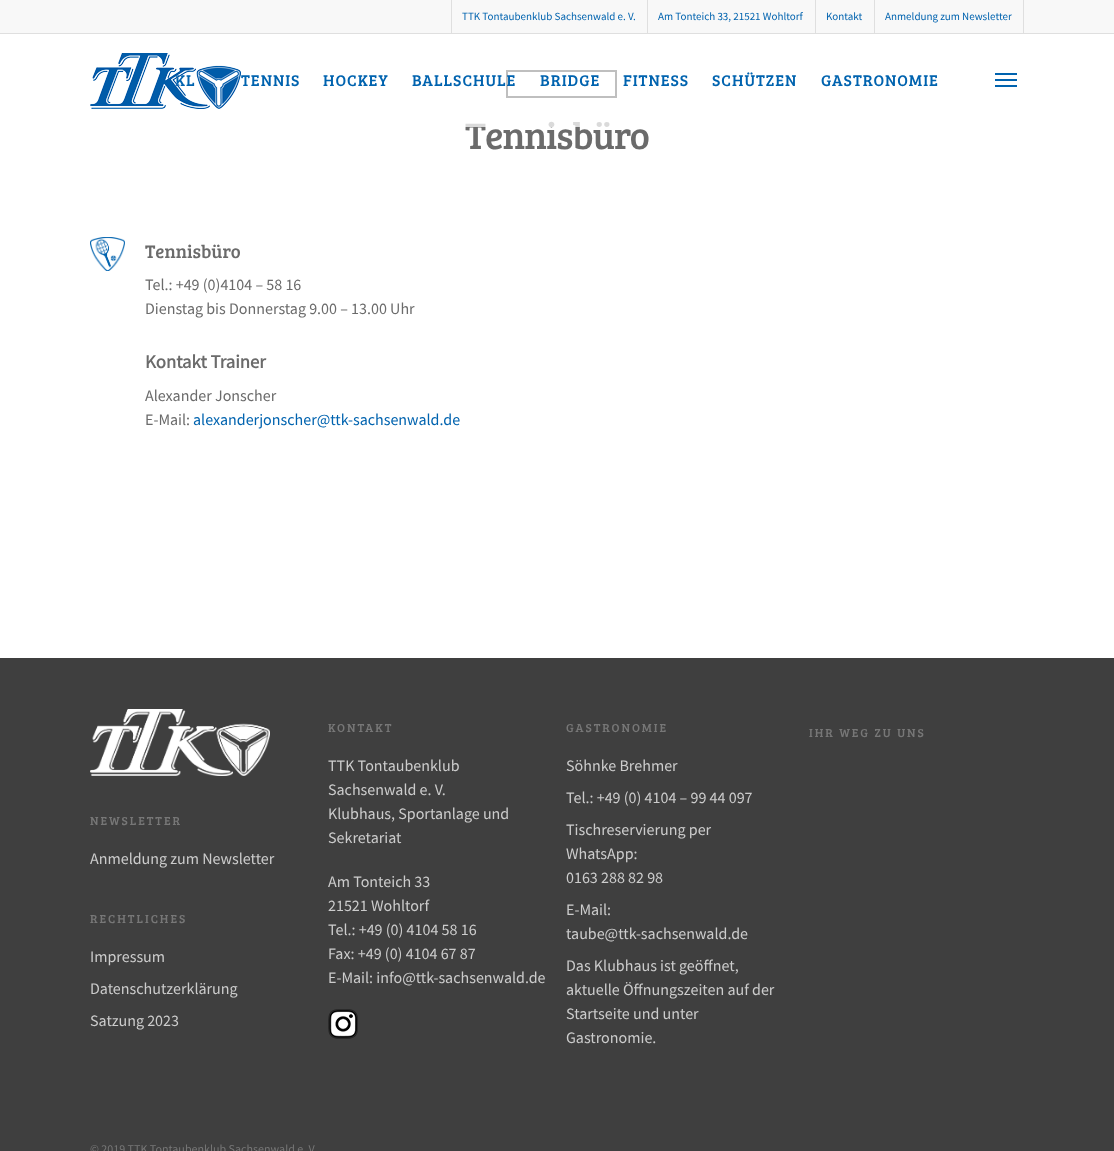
<svg xmlns="http://www.w3.org/2000/svg" width="1114" height="1151" viewBox="0 0 1114 1151">
  <rect width="100%" height="100%" fill="#3f3f3f"/>
  <path d="M0 0h1114v33H0z" fill="#f8f8f8"/>
  <path d="M0 33h1114v1H0z" fill="#dfdfdf"/>
  <path d="M451 0h1v33H451z" fill="#dfdfdf"/>
  <path d="M647 0h1v33H647z" fill="#dfdfdf"/>
  <path d="M815 0h1v33H815z" fill="#dfdfdf"/>
  <path d="M1023 0h1v33H1023z" fill="#dfdfdf"/>
  <path d="M874 0h1v33H874z" fill="#dfdfdf"/>
  <path d="M0 34h1114v624H0z" fill="#fff"/>
  <path d="M995 73h22v2H995z" fill="#0063af"/>
  <path d="M995 85h22v2H995z" fill="#0063af"/>
  <path d="M995 79h22v2H995z" fill="#0063af"/>
  <path d="M507 71h109v26H507z" fill="none" stroke="#000" stroke-width="2"/>
  <image x="90" y="237" width="35" height="34" href="img/2.png"/>
  <image x="328" y="1009" width="30" height="30" href="img/3.png"/>
  <image x="90" y="709" width="180" height="67" href="img/4.png"/>
  <g font-family="Source Sans Pro" font-size="11" fill="#0063af">
    <text x="462" y="20">TTK Tontaubenklub Sachsenwald e. V.</text>
    <text x="658" y="20">Am Tonteich 33, 21521 Wohltorf</text>
    <text x="826" y="20">Kontakt</text>
    <text x="885" y="20">Anmeldung zum Newsletter</text>
  </g>
  <g font-family="Bree Serif" font-size="16" letter-spacing="1" fill="#0063af">
    <text x="175" y="86">KL</text>
    <text x="241" y="86">TENNIS</text>
  </g>
  <image x="90" y="53" width="151" height="56" href="img/1.png"/>
  <g font-family="Bree Serif" font-size="16" letter-spacing="1" fill="#0063af">
    <text x="323" y="86">HOCKEY</text>
    <text x="623" y="86">FITNESS</text>
    <text x="712" y="86">SCHÜTZEN</text>
    <text x="821" y="86">GASTRONOMIE</text>
  </g>
  <text x="465" y="149" font-family="Bree Serif" font-size="38" letter-spacing="-1" fill="#6b6b6b">Tennisbüro</text>
  <path d="M465 70h152v57H465z" fill="#ffffffbf"/>
  <g font-family="Bree Serif" font-size="16" letter-spacing="1" fill="#0063af">
    <text x="540" y="86">BRIDGE</text>
    <text x="412" y="86">BALLSCHULE</text>
  </g>
  <text x="145" y="258" font-family="Bree Serif" font-size="18.75" fill="#6b6b6b">Tennisbüro</text>
  <g font-family="Source Sans Pro" font-size="16" fill="#6b6b6b">
    <text x="145" y="290">Tel.: +49 (0)4104 – 58 16</text>
    <text x="145" y="314">Dienstag bis Donnerstag 9.00 – 13.00 Uhr</text>
  </g>
  <text x="145" y="368" font-family="Source Sans Pro" font-size="18.75" font-weight="bold" fill="#6b6b6b">Kontakt Trainer</text>
  <g font-family="Source Sans Pro" font-size="16" fill="#6b6b6b">
    <text x="145" y="401">Alexander Jonscher</text>
    <text x="145" y="425">E-Mail:</text>
  </g>
  <text x="193" y="425" font-family="Source Sans Pro" font-size="16" fill="#0063af">alexanderjonscher@ttk-sachsenwald.de</text>
  <text x="328" y="732" font-family="Bree Serif" font-size="12" letter-spacing="2" fill="#777">KONTAKT</text>
  <g font-family="Source Sans Pro" font-size="16" fill="#ccc">
    <text x="328" y="771">TTK Tontaubenklub</text>
    <text x="328" y="795">Sachsenwald e. V.</text>
    <text x="328" y="819">Klubhaus, Sportanlage und</text>
    <text x="328" y="843">Sekretariat</text>
    <text x="328" y="887">Am Tonteich 33</text>
    <text x="328" y="911">21521 Wohltorf</text>
    <text x="328" y="935">Tel.: +49 (0) 4104 58 16</text>
    <text x="328" y="959">Fax: +49 (0) 4104 67 87</text>
    <text x="328" y="983">E-Mail: info@ttk-sachsenwald.de</text>
  </g>
  <text x="566" y="732" font-family="Bree Serif" font-size="12" letter-spacing="2" fill="#777">GASTRONOMIE</text>
  <g font-family="Source Sans Pro" font-size="16" fill="#ccc">
    <text x="566" y="771">Söhnke Brehmer</text>
    <text x="566" y="803">Tel.: +49 (0) 4104 – 99 44 097</text>
    <text x="566" y="835">Tischreservierung per</text>
    <text x="566" y="859">WhatsApp:</text>
    <text x="566" y="883">0163 288 82 98</text>
    <text x="566" y="915">E-Mail:</text>
    <text x="566" y="939">taube@ttk-sachsenwald.de</text>
    <text x="566" y="971">Das Klubhaus ist geöffnet,</text>
    <text x="566" y="995">aktuelle Öffnungszeiten auf der</text>
    <text x="566" y="1019">Startseite und unter</text>
    <text x="566" y="1043">Gastronomie.</text>
  </g>
  <g font-family="Bree Serif" font-size="12" letter-spacing="2" fill="#777">
    <text x="809" y="737">IHR WEG ZU UNS</text>
    <text x="90" y="825">NEWSLETTER</text>
  </g>
  <text x="90" y="864" font-family="Source Sans Pro" font-size="16" fill="#ccc">Anmeldung zum Newsletter</text>
  <text x="90" y="923" font-family="Bree Serif" font-size="12" letter-spacing="2" fill="#777">RECHTLICHES</text>
  <g font-family="Source Sans Pro" font-size="16" fill="#ccc">
    <text x="90" y="962">Impressum</text>
    <text x="90" y="994">Datenschutzerklärung</text>
    <text x="90" y="1026">Satzung 2023</text>
  </g>
  <text x="90" y="1153" font-family="Source Sans Pro" font-size="12" fill="#777">© 2019 TTK Tontaubenklub Sachsenwald e. V.</text>
</svg>
